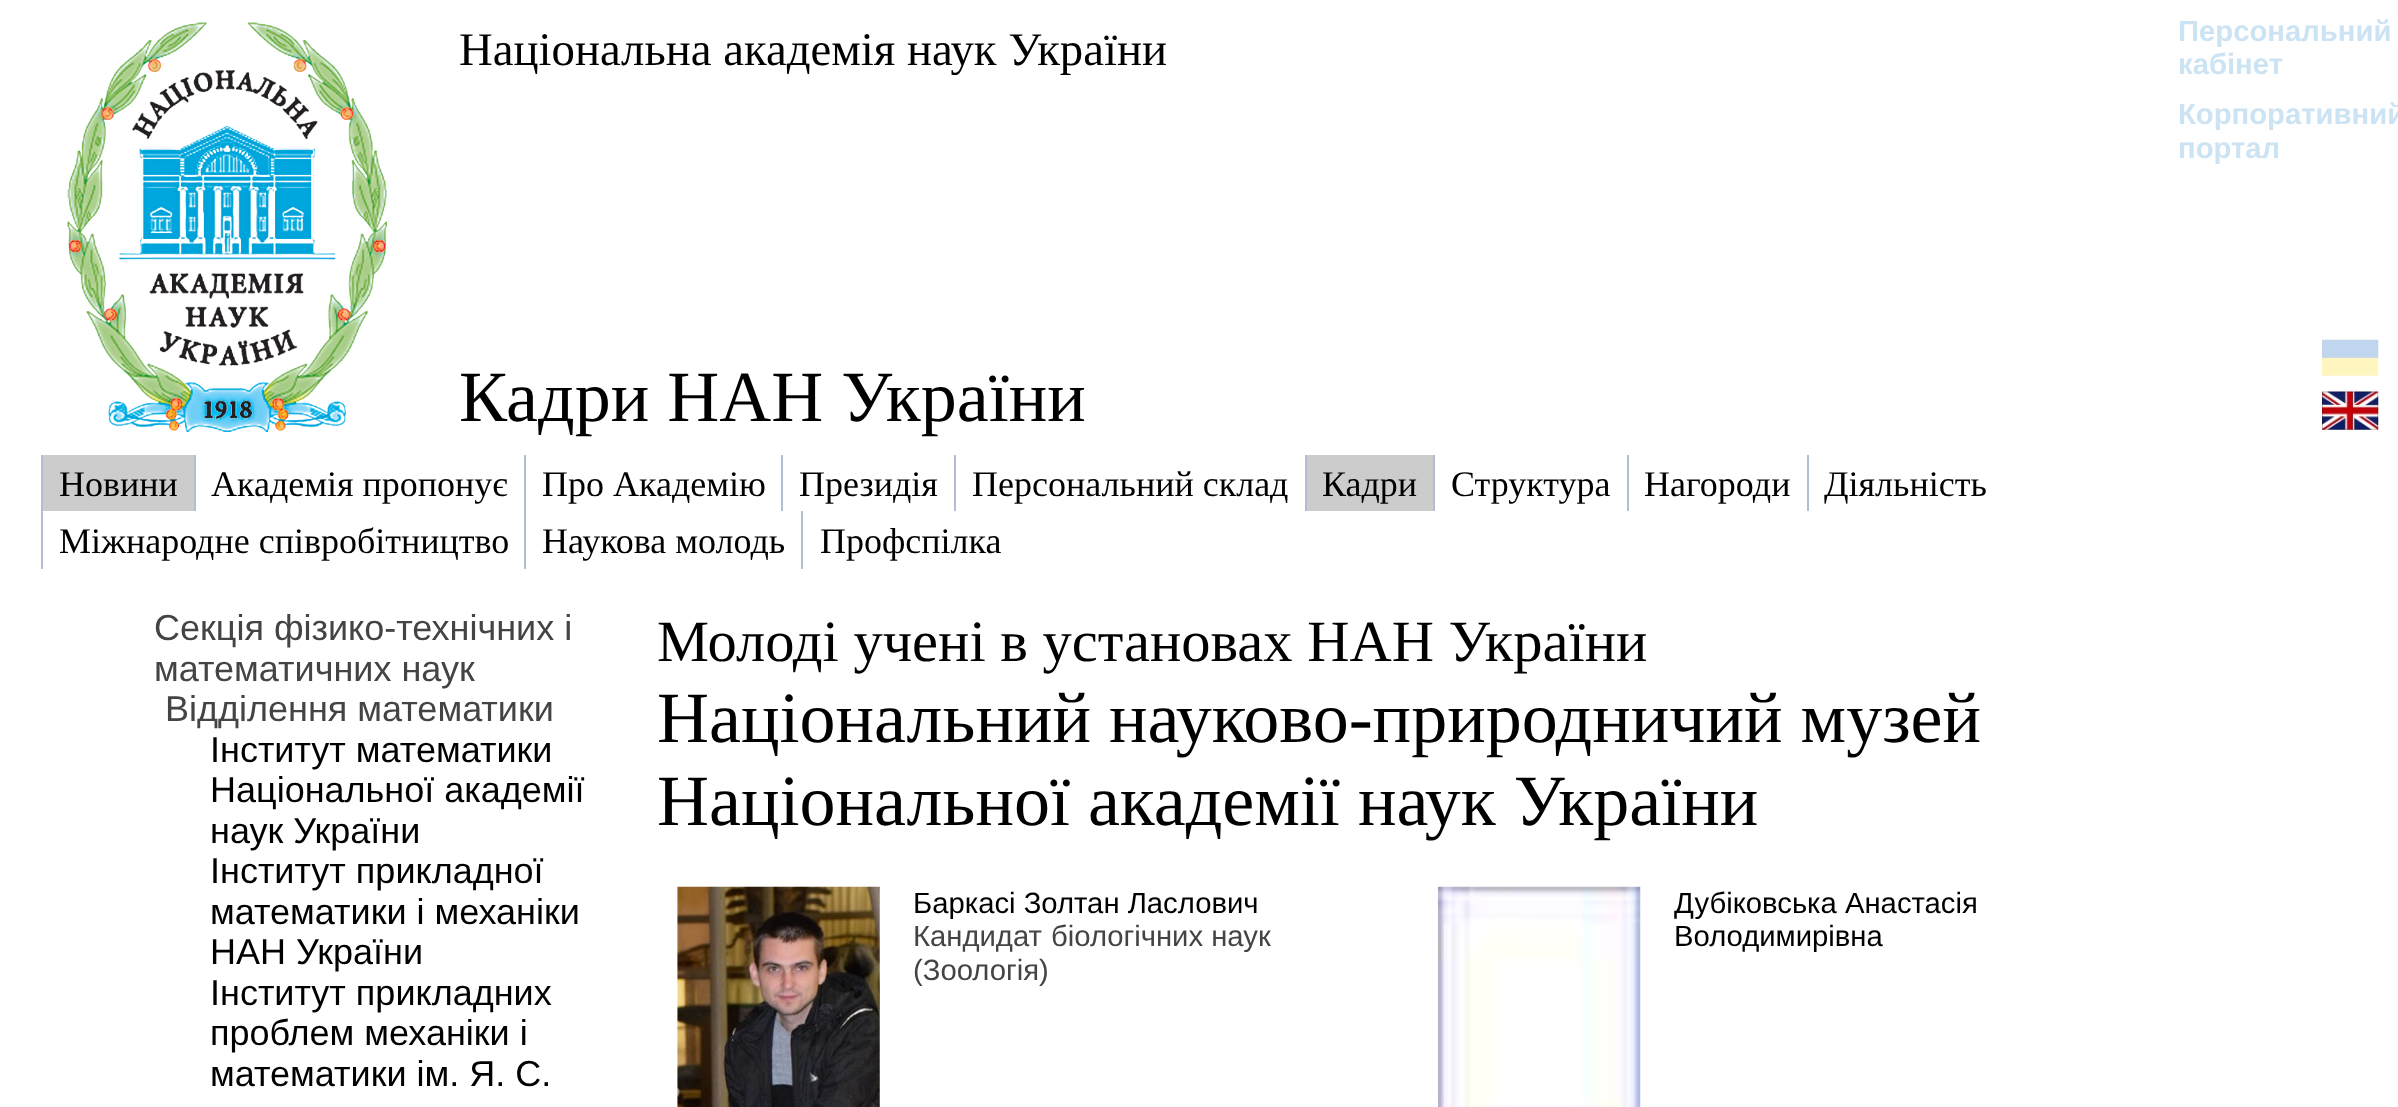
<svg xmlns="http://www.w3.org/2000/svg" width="2398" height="1107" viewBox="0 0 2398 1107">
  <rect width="100%" height="100%" fill="#fff"/>
  <image x="67" y="22" width="320" height="410" href="img/1.png"/>
  <image x="2322" y="339" width="57" height="37" href="img/2.png"/>
  <image x="2322" y="391" width="57" height="39" href="img/3.png"/>
  <path d="M43 455h151v56H43z" fill="#ccc"/>
  <path d="M41 455h2v114H41z" fill="#b2bdd3"/>
  <path d="M194 455h2v56H194z" fill="#b2bdd3"/>
  <path d="M524 455h2v114H524z" fill="#b2bdd3"/>
  <path d="M781 455h2v56H781z" fill="#b2bdd3"/>
  <path d="M954 455h2v56H954z" fill="#b2bdd3"/>
  <path d="M1307 455h126v56H1307z" fill="#ccc"/>
  <path d="M1305 455h2v56H1305z" fill="#b2bdd3"/>
  <path d="M1433 455h2v56H1433z" fill="#b2bdd3"/>
  <path d="M1627 455h2v56H1627z" fill="#b2bdd3"/>
  <path d="M1807 455h2v56H1807z" fill="#b2bdd3"/>
  <path d="M801 511h2v58H801z" fill="#b2bdd3"/>
  <image x="677" y="886" width="203" height="221" href="img/4.png"/>
  <image x="1437" y="886" width="204" height="221" href="img/5.png"/>
  <text x="459" y="65" font-family="Liberation Serif" font-size="46.75" fill="#000">Національна академія наук України</text>
  <g font-family="Liberation Sans" font-size="29.25" font-weight="bold" fill="#cce3f4">
    <text x="2178" y="41">Персональний</text>
    <text x="2178" y="74">кабінет</text>
    <text x="2178" y="124">Корпоративний</text>
    <text x="2178" y="158">портал</text>
  </g>
  <text x="459" y="421" font-family="Liberation Serif" font-size="72" fill="#000">Кадри НАН України</text>
  <g font-family="Liberation Serif" font-size="36" fill="#000">
    <text x="59" y="496">Новини</text>
    <text x="211" y="496">Академія пропонує</text>
    <text x="542" y="496">Про Академію</text>
    <text x="799" y="496">Президія</text>
    <text x="972" y="496">Персональний склад</text>
    <text x="1322" y="496">Кадри</text>
    <text x="1451" y="496">Структура</text>
    <text x="1644" y="496">Нагороди</text>
    <text x="1824" y="496">Діяльність</text>
    <text x="59" y="553">Міжнародне співробітництво</text>
    <text x="542" y="553">Наукова молодь</text>
    <text x="820" y="553">Профспілка</text>
  </g>
  <g font-family="Liberation Sans" font-size="36" fill="#444">
    <text x="154" y="640">Секція фізико-технічних і</text>
    <text x="154" y="681">математичних наук</text>
    <text x="165" y="721">Відділення математики</text>
  </g>
  <g font-family="Liberation Sans" font-size="36" fill="#000">
    <text x="210" y="762">Інститут математики</text>
    <text x="210" y="802">Національної академії</text>
    <text x="210" y="843">наук України</text>
    <text x="210" y="883">Інститут прикладної</text>
    <text x="210" y="924">математики і механіки</text>
    <text x="210" y="964">НАН України</text>
    <text x="210" y="1005">Інститут прикладних</text>
    <text x="210" y="1045">проблем механіки і</text>
    <text x="210" y="1086">математики ім. Я. С.</text>
  </g>
  <text x="657" y="661" font-family="Liberation Serif" font-size="58.5" fill="#000">Молоді учені в установах НАН України</text>
  <g font-family="Liberation Serif" font-size="72" fill="#000">
    <text x="657" y="742">Національний науково-природничий музей</text>
    <text x="657" y="825">Національної академії наук України</text>
  </g>
  <text x="913" y="913" font-family="Liberation Sans" font-size="29.25" fill="#000">Баркасі Золтан Ласлович</text>
  <g font-family="Liberation Sans" font-size="29.25" fill="#444">
    <text x="913" y="946">Кандидат</text>
    <text x="1051" y="946">біологічних наук</text>
    <text x="913" y="980">(Зоологія)</text>
  </g>
  <g font-family="Liberation Sans" font-size="29.25" fill="#000">
    <text x="1674" y="913">Дубіковська Анастасія</text>
    <text x="1674" y="946">Володимирівна</text>
  </g>
</svg>
